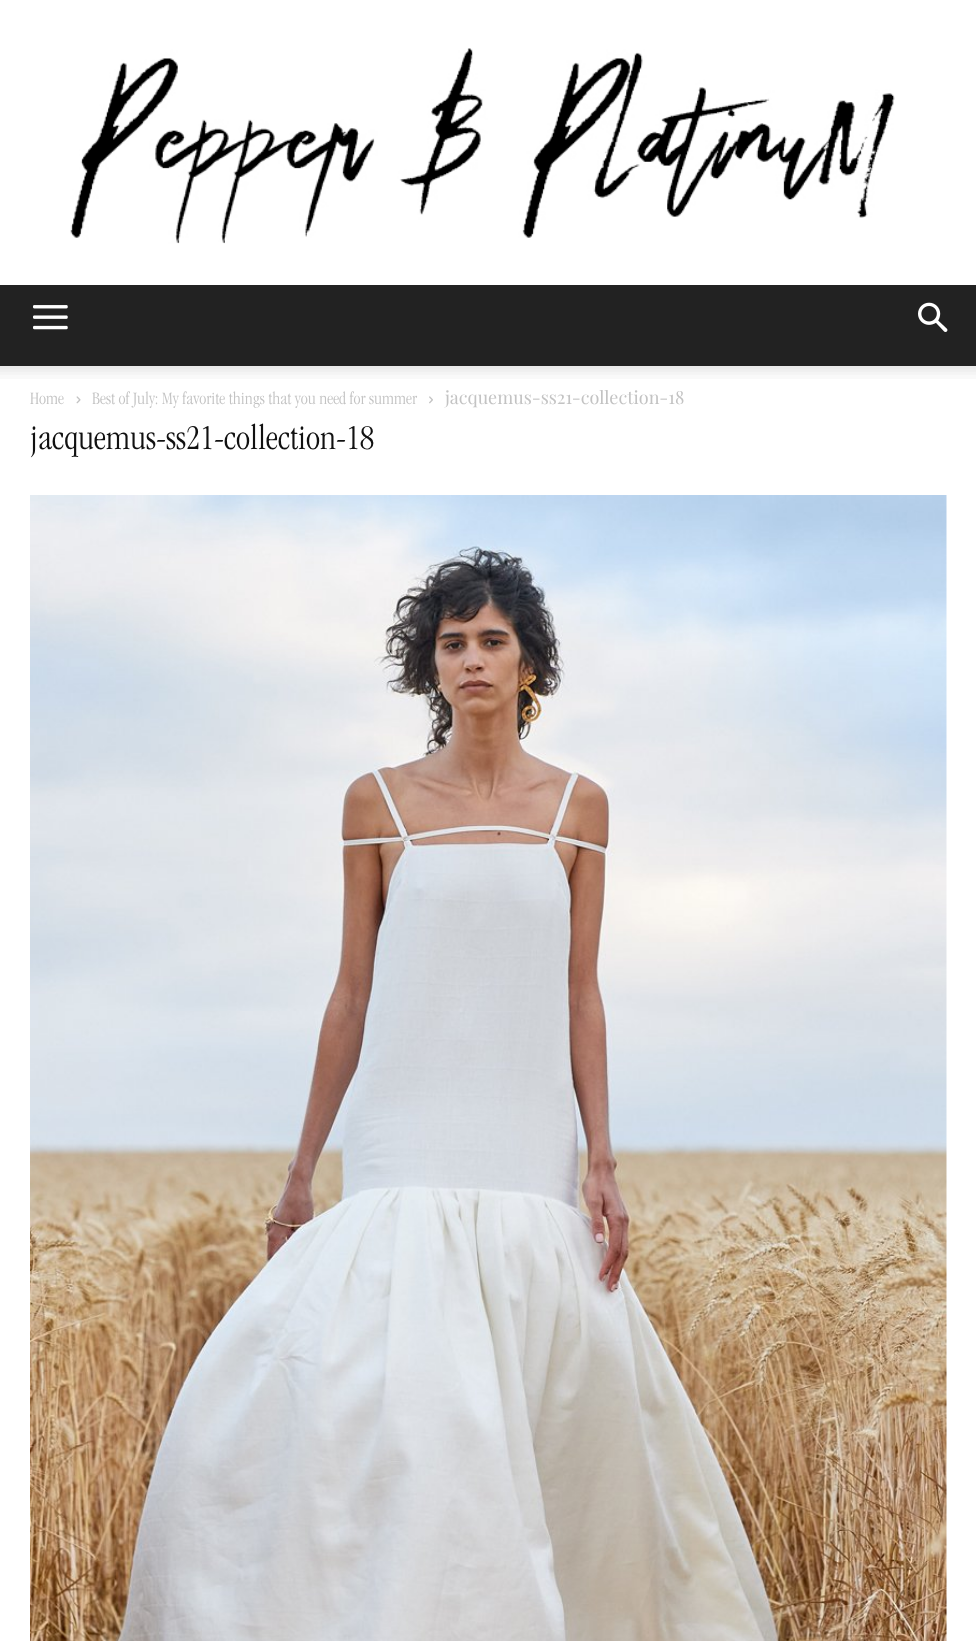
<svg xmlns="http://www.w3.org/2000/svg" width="976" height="1641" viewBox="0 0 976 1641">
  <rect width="100%" height="100%" fill="#fff"/>
  <image x="70" y="48" width="825" height="196" href="img/1.png"/>
  <path d="M0 285h976v81H0z" fill="#222"/>
  <image x="33" y="305" width="35" height="25" href="img/2.png"/>
  <image x="918" y="302" width="30" height="30" href="img/3.png"/>
  <image x="0" y="366" width="976" height="13" href="img/4.png"/>
  <image x="76" y="396" width="5" height="8" href="img/5.png"/>
  <image x="429" y="396" width="4" height="8" href="img/6.png"/>
  <image x="30" y="495" width="917" height="1146" href="img/7.png"/>
  <g font-family="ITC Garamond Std" font-size="18" font-weight="300" fill="#c3c3c3">
    <text x="30" y="404">Home</text>
    <text x="92" y="404">Best of July: My favorite things that you need for summer</text>
  </g>
  <text x="445" y="404" font-family="Playfair Display" font-size="18" fill="#c3c3c3">jacquemus-ss21-collection-18</text>
  <text x="30" y="449" font-family="ITC Garamond Std" font-size="36" font-weight="300" fill="#111">jacquemus-ss21-collection-18</text>
</svg>
